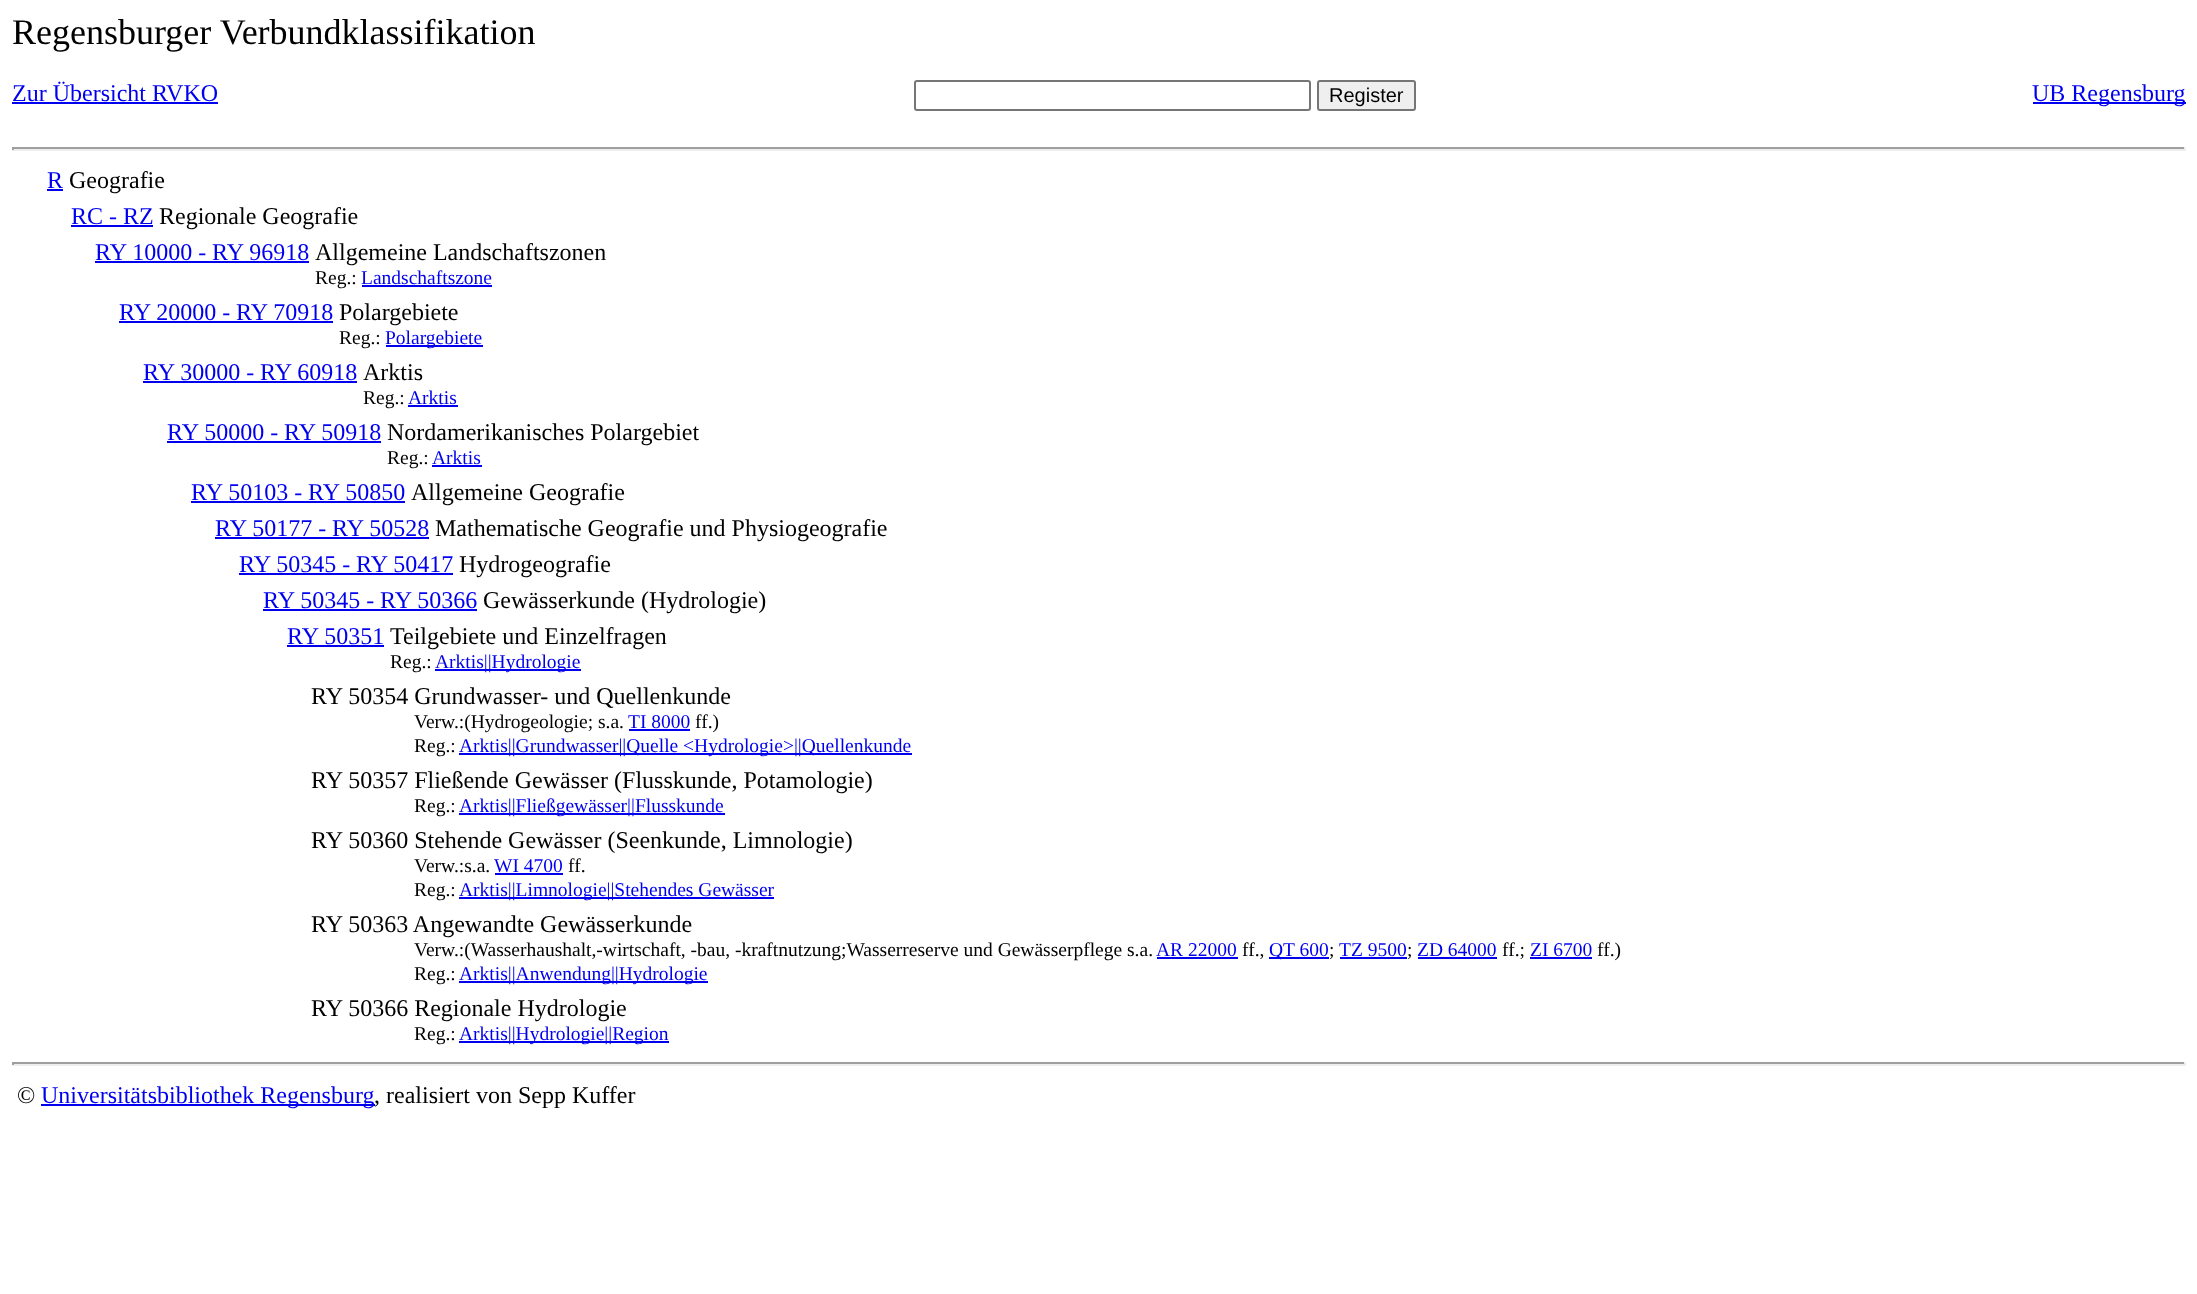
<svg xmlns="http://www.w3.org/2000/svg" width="2197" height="1294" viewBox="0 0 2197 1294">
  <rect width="100%" height="100%" fill="#fff"/>
  <path d="M12 102h206v2H12z" fill="#00e"/>
  <rect x="915" y="81" width="395" height="29" rx="2" fill="none" stroke="#767676" stroke-width="2"/>
  <rect x="1318" y="81" width="97" height="29" rx="2" fill="#efefef" stroke="#767676" stroke-width="2"/>
  <path d="M2033 102h153v2H2033z" fill="#00e"/>
  <path d="M12 147h2174v2H12z" fill="#9f9f9f"/>
  <path d="M2184 147h2v3H2184z" fill="#eee"/>
  <path d="M12 149h2174v2H12z" fill="#eee"/>
  <path d="M12 147h2v3H12z" fill="#9f9f9f"/>
  <path d="M47 189h16v2H47z" fill="#00e"/>
  <path d="M71 225h82v2H71z" fill="#00e"/>
  <path d="M95 261h214v2H95z" fill="#00e"/>
  <path d="M362 285h130v2H362z" fill="#00e"/>
  <path d="M119 321h214v2H119z" fill="#00e"/>
  <path d="M386 345h97v2H386z" fill="#00e"/>
  <path d="M143 381h214v2H143z" fill="#00e"/>
  <path d="M408 405h50v2H408z" fill="#00e"/>
  <path d="M167 441h214v2H167z" fill="#00e"/>
  <path d="M432 465h50v2H432z" fill="#00e"/>
  <path d="M191 501h214v2H191z" fill="#00e"/>
  <path d="M215 537h214v2H215z" fill="#00e"/>
  <path d="M239 573h214v2H239z" fill="#00e"/>
  <path d="M263 609h214v2H263z" fill="#00e"/>
  <path d="M287 645h97v2H287z" fill="#00e"/>
  <path d="M435 669h146v2H435z" fill="#00e"/>
  <path d="M629 729h61v2H629z" fill="#00e"/>
  <path d="M459 753h453v2H459z" fill="#00e"/>
  <path d="M459 813h266v2H459z" fill="#00e"/>
  <path d="M495 873h68v2H495z" fill="#00e"/>
  <path d="M459 897h315v2H459z" fill="#00e"/>
  <path d="M1157 957h81v2H1157z" fill="#00e"/>
  <path d="M1269 957h60v2H1269z" fill="#00e"/>
  <path d="M1340 957h67v2H1340z" fill="#00e"/>
  <path d="M1418 957h79v2H1418z" fill="#00e"/>
  <path d="M1530 957h62v2H1530z" fill="#00e"/>
  <path d="M459 981h249v2H459z" fill="#00e"/>
  <path d="M459 1041h210v2H459z" fill="#00e"/>
  <path d="M12 1062h2174v2H12z" fill="#9f9f9f"/>
  <path d="M2184 1062h2v3H2184z" fill="#eee"/>
  <path d="M12 1064h2174v2H12z" fill="#eee"/>
  <path d="M12 1062h2v3H12z" fill="#9f9f9f"/>
  <path d="M41 1104h334v2H41z" fill="#00e"/>
  <text x="12" y="44" font-family="Liberation Serif" font-size="36" fill="#000">Regensburger Verbundklassifikation</text>
  <text x="12" y="101" font-family="Liberation Serif" font-size="24" fill="#00e">Zur Übersicht RVKO</text>
  <text x="1329" y="102" font-family="Liberation Sans" font-size="20" fill="#000">Register</text>
  <g font-family="Liberation Serif" font-size="24" fill="#00e">
    <text x="2032" y="101">UB Regensburg</text>
    <text x="47" y="188">R</text>
  </g>
  <text x="69" y="188" font-family="Liberation Serif" font-size="24" fill="#000">Geografie</text>
  <text x="71" y="224" font-family="Liberation Serif" font-size="24" fill="#00e">RC - RZ</text>
  <text x="159" y="224" font-family="Liberation Serif" font-size="24" fill="#000">Regionale Geografie</text>
  <text x="95" y="260" font-family="Liberation Serif" font-size="24" fill="#00e">RY 10000 - RY 96918</text>
  <text x="315" y="260" font-family="Liberation Serif" font-size="24" fill="#000">Allgemeine Landschaftszonen</text>
  <text x="315" y="284" font-family="Liberation Serif" font-size="19.5" fill="#000">Reg.:</text>
  <text x="361" y="284" font-family="Liberation Serif" font-size="19.5" fill="#00e">Landschaftszone</text>
  <text x="119" y="320" font-family="Liberation Serif" font-size="24" fill="#00e">RY 20000 - RY 70918</text>
  <text x="339" y="320" font-family="Liberation Serif" font-size="24" fill="#000">Polargebiete</text>
  <text x="339" y="344" font-family="Liberation Serif" font-size="19.5" fill="#000">Reg.:</text>
  <text x="385" y="344" font-family="Liberation Serif" font-size="19.5" fill="#00e">Polargebiete</text>
  <text x="143" y="380" font-family="Liberation Serif" font-size="24" fill="#00e">RY 30000 - RY 60918</text>
  <text x="363" y="380" font-family="Liberation Serif" font-size="24" fill="#000">Arktis</text>
  <text x="363" y="404" font-family="Liberation Serif" font-size="19.5" fill="#000">Reg.:</text>
  <text x="408" y="404" font-family="Liberation Serif" font-size="19.5" fill="#00e">Arktis</text>
  <text x="167" y="440" font-family="Liberation Serif" font-size="24" fill="#00e">RY 50000 - RY 50918</text>
  <text x="387" y="440" font-family="Liberation Serif" font-size="24" fill="#000">Nordamerikanisches Polargebiet</text>
  <text x="387" y="464" font-family="Liberation Serif" font-size="19.5" fill="#000">Reg.:</text>
  <text x="432" y="464" font-family="Liberation Serif" font-size="19.5" fill="#00e">Arktis</text>
  <text x="191" y="500" font-family="Liberation Serif" font-size="24" fill="#00e">RY 50103 - RY 50850</text>
  <text x="411" y="500" font-family="Liberation Serif" font-size="24" fill="#000">Allgemeine Geografie</text>
  <text x="215" y="536" font-family="Liberation Serif" font-size="24" fill="#00e">RY 50177 - RY 50528</text>
  <text x="435" y="536" font-family="Liberation Serif" font-size="24" fill="#000">Mathematische Geografie und Physiogeografie</text>
  <text x="239" y="572" font-family="Liberation Serif" font-size="24" fill="#00e">RY 50345 - RY 50417</text>
  <text x="459" y="572" font-family="Liberation Serif" font-size="24" fill="#000">Hydrogeografie</text>
  <text x="263" y="608" font-family="Liberation Serif" font-size="24" fill="#00e">RY 50345 - RY 50366</text>
  <text x="483" y="608" font-family="Liberation Serif" font-size="24" fill="#000">Gewässerkunde (Hydrologie)</text>
  <text x="287" y="644" font-family="Liberation Serif" font-size="24" fill="#00e">RY 50351</text>
  <text x="390" y="644" font-family="Liberation Serif" font-size="24" fill="#000">Teilgebiete und Einzelfragen</text>
  <text x="390" y="668" font-family="Liberation Serif" font-size="19.5" fill="#000">Reg.:</text>
  <text x="435" y="668" font-family="Liberation Serif" font-size="19.5" fill="#00e">Arktis||Hydrologie</text>
  <text x="311" y="704" font-family="Liberation Serif" font-size="24" fill="#000">RY 50354 Grundwasser- und Quellenkunde</text>
  <text x="414" y="728" font-family="Liberation Serif" font-size="19.5" fill="#000">Verw.:(Hydrogeologie; s.a.</text>
  <text x="628" y="728" font-family="Liberation Serif" font-size="19.5" fill="#00e">TI 8000</text>
  <g font-family="Liberation Serif" font-size="19.5" fill="#000">
    <text x="695" y="728">ff.)</text>
    <text x="414" y="752">Reg.:</text>
  </g>
  <text x="459" y="752" font-family="Liberation Serif" font-size="19.5" fill="#00e">Arktis||Grundwasser||Quelle &lt;Hydrologie&gt;||Quellenkunde</text>
  <text x="311" y="788" font-family="Liberation Serif" font-size="24" fill="#000">RY 50357 Fließende Gewässer (Flusskunde, Potamologie)</text>
  <text x="414" y="812" font-family="Liberation Serif" font-size="19.5" fill="#000">Reg.:</text>
  <text x="459" y="812" font-family="Liberation Serif" font-size="19.5" fill="#00e">Arktis||Fließgewässer||Flusskunde</text>
  <text x="311" y="848" font-family="Liberation Serif" font-size="24" fill="#000">RY 50360 Stehende Gewässer (Seenkunde, Limnologie)</text>
  <text x="414" y="872" font-family="Liberation Serif" font-size="19.5" fill="#000">Verw.:s.a.</text>
  <text x="494" y="872" font-family="Liberation Serif" font-size="19.5" fill="#00e">WI 4700</text>
  <g font-family="Liberation Serif" font-size="19.5" fill="#000">
    <text x="568" y="872">ff.</text>
    <text x="414" y="896">Reg.:</text>
  </g>
  <text x="459" y="896" font-family="Liberation Serif" font-size="19.5" fill="#00e">Arktis||Limnologie||Stehendes Gewässer</text>
  <text x="311" y="932" font-family="Liberation Serif" font-size="24" fill="#000">RY 50363 Angewandte Gewässerkunde</text>
  <text x="414" y="956" font-family="Liberation Serif" font-size="19.5" fill="#000">Verw.:(Wasserhaushalt,-wirtschaft, -bau, -kraftnutzung;Wasserreserve und Gewässerpflege s.a.</text>
  <text x="1156" y="956" font-family="Liberation Serif" font-size="19.5" fill="#00e">AR 22000</text>
  <text x="1242" y="956" font-family="Liberation Serif" font-size="19.5" fill="#000">ff.,</text>
  <text x="1269" y="956" font-family="Liberation Serif" font-size="19.5" fill="#00e">QT 600</text>
  <text x="1329" y="956" font-family="Liberation Serif" font-size="19.5" fill="#000">;</text>
  <text x="1339" y="956" font-family="Liberation Serif" font-size="19.5" fill="#00e">TZ 9500</text>
  <text x="1407" y="956" font-family="Liberation Serif" font-size="19.5" fill="#000">;</text>
  <text x="1417" y="956" font-family="Liberation Serif" font-size="19.5" fill="#00e">ZD 64000</text>
  <text x="1502" y="956" font-family="Liberation Serif" font-size="19.5" fill="#000">ff.;</text>
  <text x="1530" y="956" font-family="Liberation Serif" font-size="19.5" fill="#00e">ZI 6700</text>
  <g font-family="Liberation Serif" font-size="19.5" fill="#000">
    <text x="1597" y="956">ff.)</text>
    <text x="414" y="980">Reg.:</text>
  </g>
  <text x="459" y="980" font-family="Liberation Serif" font-size="19.5" fill="#00e">Arktis||Anwendung||Hydrologie</text>
  <text x="311" y="1016" font-family="Liberation Serif" font-size="24" fill="#000">RY 50366 Regionale Hydrologie</text>
  <text x="414" y="1040" font-family="Liberation Serif" font-size="19.5" fill="#000">Reg.:</text>
  <text x="459" y="1040" font-family="Liberation Serif" font-size="19.5" fill="#00e">Arktis||Hydrologie||Region</text>
  <text x="17" y="1103" font-family="Liberation Serif" font-size="24" fill="#000">©</text>
  <text x="41" y="1103" font-family="Liberation Serif" font-size="24" fill="#00e">Universitätsbibliothek Regensburg</text>
  <text x="374" y="1103" font-family="Liberation Serif" font-size="24" fill="#000">, realisiert von Sepp Kuffer</text>
</svg>
